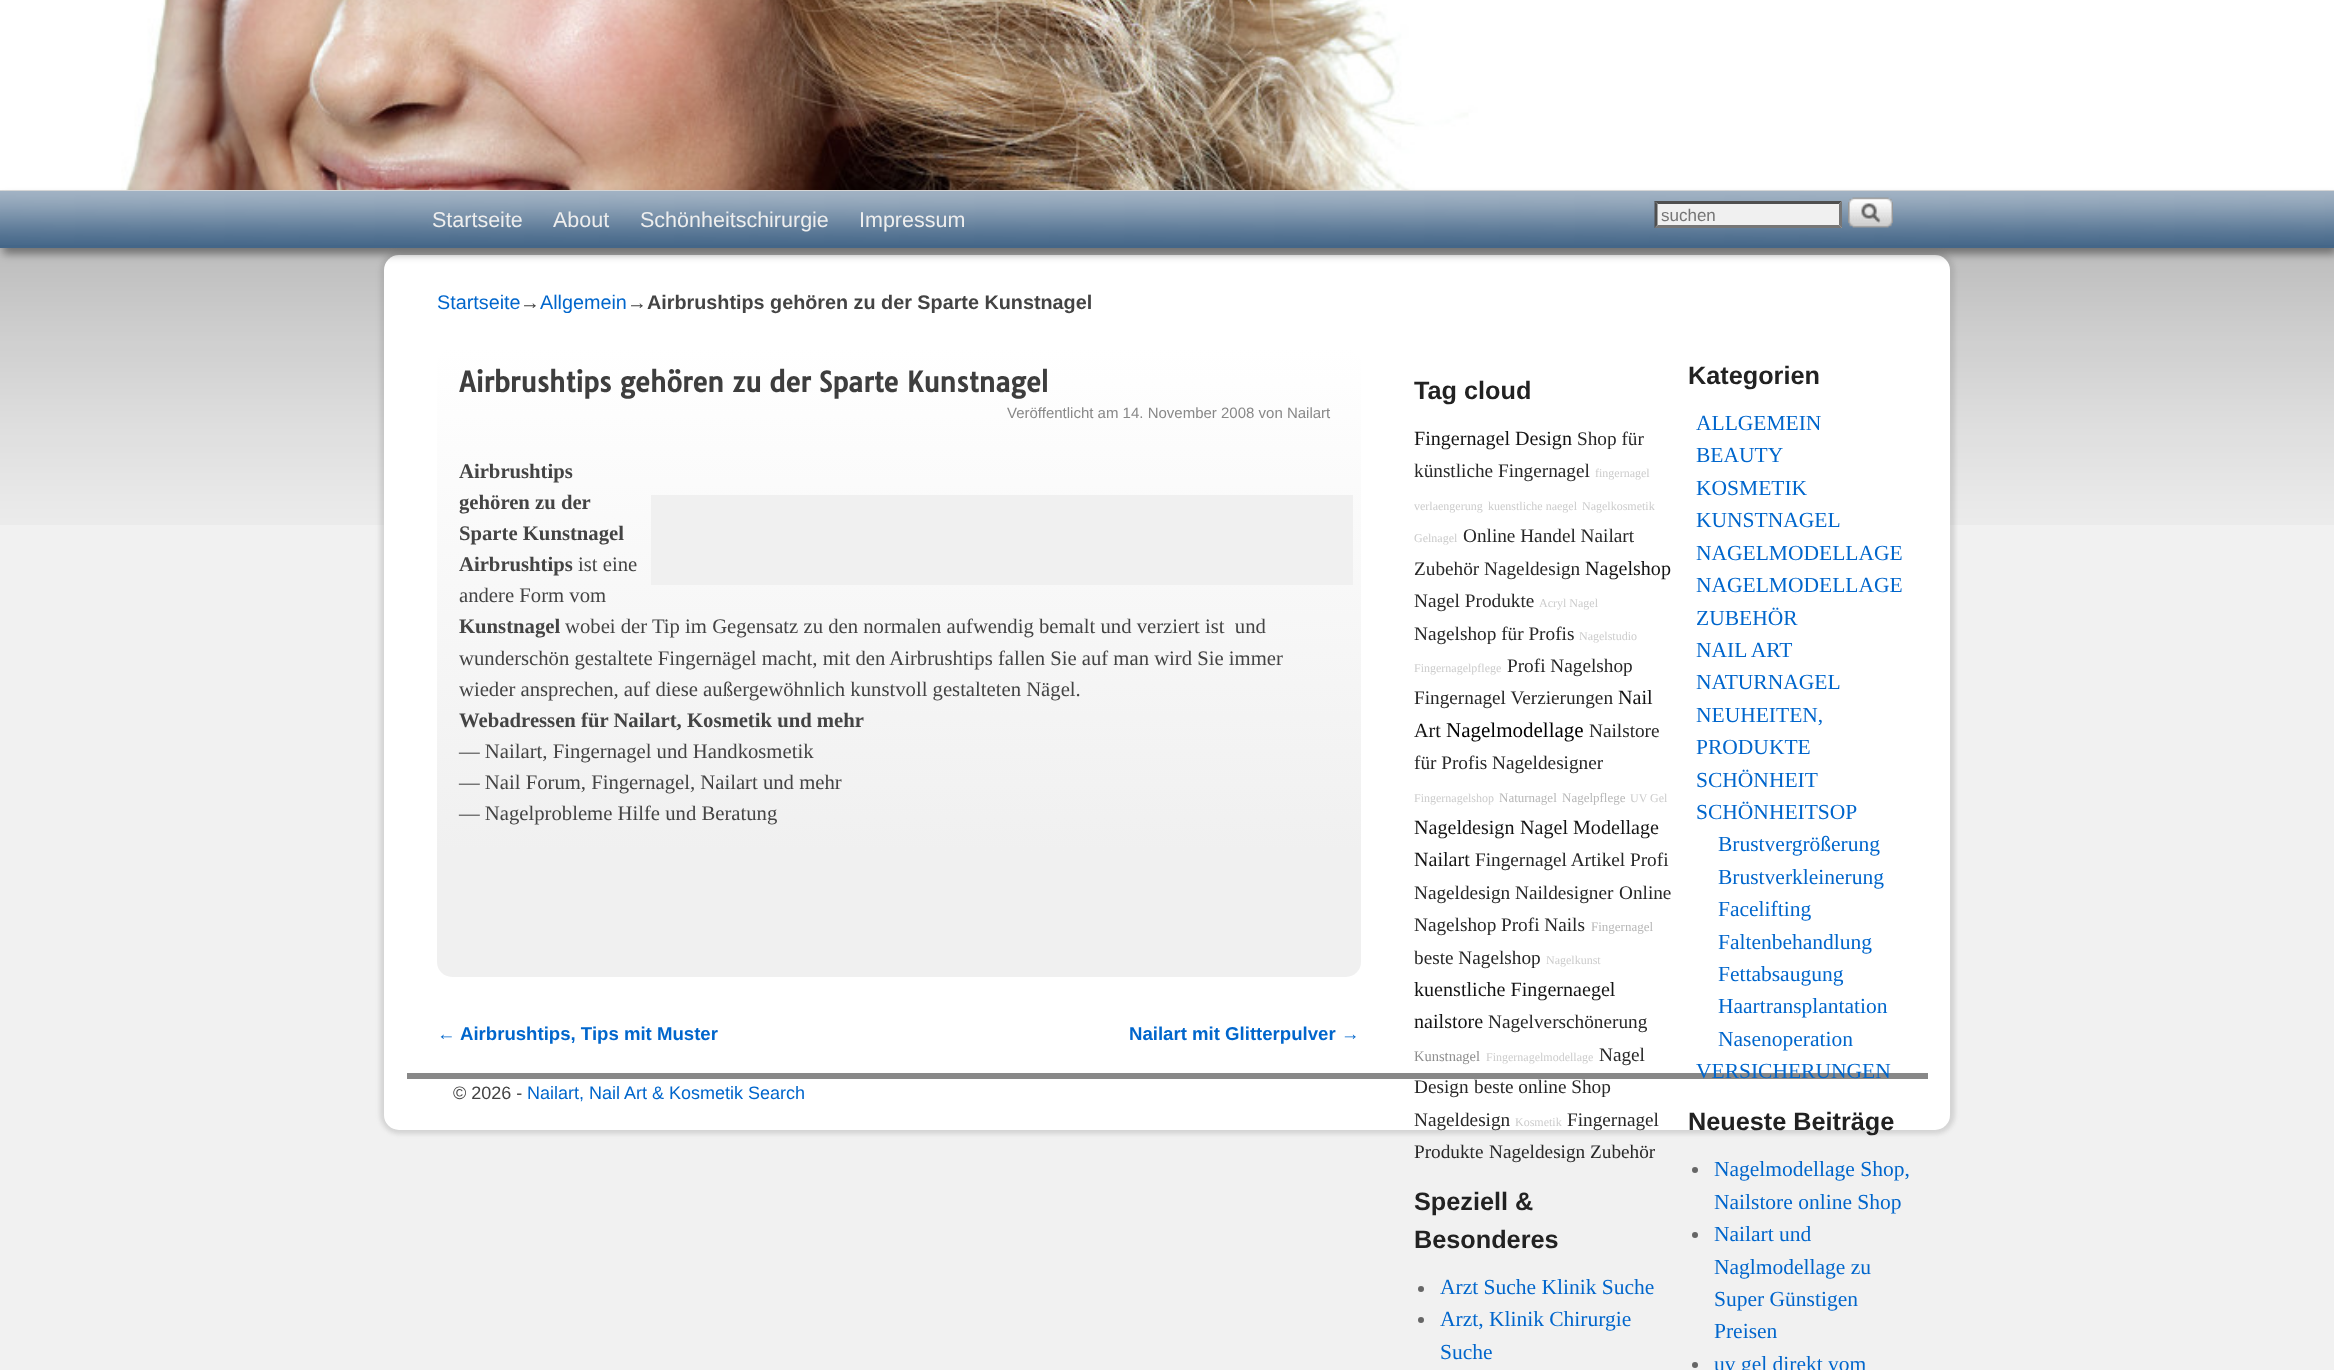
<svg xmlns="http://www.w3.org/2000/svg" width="2334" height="1370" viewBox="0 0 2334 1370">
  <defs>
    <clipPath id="clip1"><path d="M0 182H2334V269H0ZM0 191H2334V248H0Z" clip-rule="evenodd"/></clipPath>
    <linearGradient id="g1" gradientUnits="userSpaceOnUse" x1="899" y1="348" x2="899" y2="977"><stop offset="0" stop-color="#fff"/><stop offset="0.8" stop-color="#f0f0f0"/></linearGradient>
  </defs>
  <rect width="100%" height="100%" fill="#f1f1f1"/>
  <image x="0" y="190" width="2334" height="335" href="img/1.png"/>
  <image x="0" y="0" width="2334" height="190" href="img/2.png"/>
  <rect x="380" y="251" width="1575" height="883" rx="20" fill="#7f7f7f40" filter="blur(2px)"/>
  <path d="M0 191h2334v57H0z" fill="#468"/>
  <rect x="384" y="255" width="1566" height="875" rx="15" fill="#fff"/>
  <g clip-path="url(#clip1)">
    <path d="M3 197h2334v57H3z" fill="#00000066" filter="blur(4.5px)"/>
  </g>
  <image x="0" y="190" width="2334" height="55" href="img/3.png"/>
  <path d="M1655 201h187v27H1655z" fill="#f0f0f0"/>
  <path d="M1654 201H1842L1839 204H1658Z" fill="#4f4f4f"/>
  <path d="M1842 201V228L1839 225V204Z" fill="#767676"/>
  <path d="M1842 228H1654L1658 225H1839Z" fill="#767676"/>
  <path d="M1654.5 228V201L1657.5 204V225Z" fill="#4f4f4f"/>
  <image x="1848" y="197" width="45" height="31" href="img/4.png"/>
  <rect x="437" y="348" width="924" height="629" rx="15" fill="url(#g1)"/>
  <path d="M651 495h702v90H651z" fill="#f0f0f0"/>
  <circle cx="1421" cy="1289" r="3" fill="#666"/>
  <circle cx="1421" cy="1320" r="3" fill="#666"/>
  <circle cx="1695" cy="1170" r="3" fill="#666"/>
  <circle cx="1695" cy="1235" r="3" fill="#666"/>
  <circle cx="1695" cy="1365" r="3" fill="#666"/>
  <path d="M407 1073h1521v6H407z" fill="#888"/>
  <g font-family="Liberation Sans" font-size="21.5" fill="#eee">
    <text x="432" y="227">Startseite</text>
    <text x="553" y="227">About</text>
    <text x="640" y="227">Schönheitschirurgie</text>
    <text x="859" y="227">Impressum</text>
  </g>
  <text x="1661" y="221" font-family="Liberation Sans" font-size="17" fill="#757575">suchen</text>
  <text x="437" y="309" font-family="Liberation Sans" font-size="19.8" fill="#06c">Startseite</text>
  <text x="520" y="309" font-family="Liberation Sans" font-size="19.8" fill="#444">→</text>
  <text x="540" y="309" font-family="Liberation Sans" font-size="19.8" fill="#06c">Allgemein</text>
  <text x="627" y="309" font-family="Liberation Sans" font-size="19.8" fill="#444">→</text>
  <text x="647" y="309" font-family="Liberation Sans" font-size="19.8" font-weight="bold" fill="#444">Airbrushtips gehören zu der Sparte Kunstnagel</text>
  <text x="459" y="392" font-family="Tauri" font-size="26.9" font-weight="bold" fill="#3e3e3e">Airbrushtips gehören zu der Sparte Kunstnagel</text>
  <text x="1007" y="418" font-family="Liberation Sans" font-size="15" fill="#888">Veröffentlicht am 14. November 2008 von Nailart</text>
  <g font-family="Liberation Serif" font-size="20.7" font-weight="bold" fill="#444">
    <text x="459" y="478">Airbrushtips</text>
    <text x="459" y="509">gehören zu der</text>
    <text x="459" y="540">Sparte Kunstnagel</text>
    <text x="459" y="571">Airbrushtips</text>
  </g>
  <g font-family="Liberation Serif" font-size="20.7" fill="#444">
    <text x="578" y="571">ist eine</text>
    <text x="459" y="602">andere Form vom</text>
  </g>
  <text x="459" y="633" font-family="Liberation Serif" font-size="20.7" font-weight="bold" fill="#444">Kunstnagel</text>
  <g font-family="Liberation Serif" font-size="20.7" fill="#444">
    <text x="565" y="633" xml:space="preserve">wobei der Tip im Gegensatz zu den normalen aufwendig bemalt und verziert ist  und</text>
    <text x="459" y="665">wunderschön gestaltete Fingernägel macht, mit den Airbrushtips fallen Sie auf man wird Sie immer</text>
    <text x="459" y="696">wieder ansprechen, auf diese außergewöhnlich kunstvoll gestalteten Nägel.</text>
  </g>
  <text x="459" y="727" font-family="Liberation Serif" font-size="20.7" font-weight="bold" fill="#444">Webadressen für Nailart, Kosmetik und mehr</text>
  <g font-family="Liberation Serif" font-size="20.7" fill="#444">
    <text x="459" y="758">— Nailart, Fingernagel und Handkosmetik</text>
    <text x="459" y="789">— Nail Forum, Fingernagel, Nailart und mehr</text>
    <text x="459" y="820">— Nagelprobleme Hilfe und Beratung</text>
  </g>
  <text x="437" y="1040" font-family="Liberation Sans" font-size="18.6" fill="#06c">←</text>
  <g font-family="Liberation Sans" font-size="18.6" font-weight="bold" fill="#06c">
    <text x="460" y="1040">Airbrushtips, Tips mit Muster</text>
    <text x="1129" y="1040">Nailart mit Glitterpulver</text>
  </g>
  <text x="1341" y="1040" font-family="Liberation Sans" font-size="18.6" fill="#06c">→</text>
  <text x="1414" y="399" font-family="Liberation Sans" font-size="25.25" font-weight="bold" fill="#222">Tag cloud</text>
  <text x="1414" y="445" font-family="Liberation Serif" font-size="20.1" fill="#141414">Fingernagel Design</text>
  <g font-family="Liberation Serif" font-size="19.25" fill="#282828">
    <text x="1577" y="445">Shop für</text>
    <text x="1414" y="477">künstliche Fingernagel</text>
  </g>
  <g font-family="Liberation Serif" font-size="12" fill="#ccc">
    <text x="1595" y="477">fingernagel</text>
    <text x="1414" y="510">verlaengerung</text>
    <text x="1488" y="510">kuenstliche naegel</text>
    <text x="1582" y="510">Nagelkosmetik</text>
    <text x="1414" y="542">Gelnagel</text>
  </g>
  <g font-family="Liberation Serif" font-size="19.25" fill="#282828">
    <text x="1463" y="542">Online Handel Nailart</text>
    <text x="1414" y="575">Zubehör Nageldesign</text>
  </g>
  <text x="1585" y="575" font-family="Liberation Serif" font-size="20.1" fill="#141414">Nagelshop</text>
  <text x="1414" y="607" font-family="Liberation Serif" font-size="19.25" fill="#282828">Nagel Produkte</text>
  <text x="1539" y="607" font-family="Liberation Serif" font-size="12" fill="#ccc">Acryl Nagel</text>
  <text x="1414" y="640" font-family="Liberation Serif" font-size="19.25" fill="#282828">Nagelshop für Profis</text>
  <g font-family="Liberation Serif" font-size="12" fill="#ccc">
    <text x="1579" y="640">Nagelstudio</text>
    <text x="1414" y="672">Fingernagelpflege</text>
  </g>
  <g font-family="Liberation Serif" font-size="19.25" fill="#282828">
    <text x="1507" y="672">Profi Nagelshop</text>
    <text x="1414" y="704">Fingernagel Verzierungen</text>
  </g>
  <g font-family="Liberation Serif" font-size="20.1" fill="#141414">
    <text x="1618" y="704">Nail</text>
    <text x="1414" y="737">Art</text>
  </g>
  <text x="1446" y="737" font-family="Liberation Serif" font-size="21" fill="#000">Nagelmodellage</text>
  <g font-family="Liberation Serif" font-size="19.25" fill="#282828">
    <text x="1589" y="737">Nailstore</text>
    <text x="1414" y="769">für Profis</text>
    <text x="1492" y="769">Nageldesigner</text>
  </g>
  <text x="1414" y="802" font-family="Liberation Serif" font-size="12" fill="#ccc">Fingernagelshop</text>
  <g font-family="Liberation Serif" font-size="13" fill="#b7b7b7">
    <text x="1499" y="802">Naturnagel</text>
    <text x="1562" y="802">Nagelpflege</text>
  </g>
  <text x="1630" y="802" font-family="Liberation Serif" font-size="12" fill="#ccc">UV Gel</text>
  <g font-family="Liberation Serif" font-size="20.1" fill="#141414">
    <text x="1414" y="834">Nageldesign</text>
    <text x="1520" y="834">Nagel Modellage</text>
    <text x="1414" y="866">Nailart</text>
  </g>
  <g font-family="Liberation Serif" font-size="19.25" fill="#282828">
    <text x="1475" y="866">Fingernagel Artikel</text>
    <text x="1630" y="866">Profi</text>
    <text x="1414" y="899">Nageldesign</text>
    <text x="1515" y="899">Naildesigner</text>
    <text x="1619" y="899">Online</text>
    <text x="1414" y="931">Nagelshop</text>
    <text x="1501" y="931">Profi Nails</text>
  </g>
  <text x="1591" y="931" font-family="Liberation Serif" font-size="13" fill="#b7b7b7">Fingernagel</text>
  <text x="1414" y="964" font-family="Liberation Serif" font-size="19.25" fill="#282828">beste Nagelshop</text>
  <text x="1546" y="964" font-family="Liberation Serif" font-size="12" fill="#ccc">Nagelkunst</text>
  <g font-family="Liberation Serif" font-size="20.1" fill="#141414">
    <text x="1414" y="996">kuenstliche Fingernaegel</text>
    <text x="1414" y="1028">nailstore</text>
  </g>
  <text x="1488" y="1028" font-family="Liberation Serif" font-size="19.25" fill="#282828">Nagelverschönerung</text>
  <text x="1414" y="1061" font-family="Liberation Serif" font-size="14.5" fill="#8e8e8e">Kunstnagel</text>
  <text x="1486" y="1061" font-family="Liberation Serif" font-size="12" fill="#ccc">Fingernagelmodellage</text>
  <g font-family="Liberation Serif" font-size="19.25" fill="#282828">
    <text x="1599" y="1061">Nagel</text>
    <text x="1414" y="1093">Design</text>
    <text x="1474" y="1093">beste online Shop</text>
    <text x="1414" y="1126">Nageldesign</text>
  </g>
  <text x="1515" y="1126" font-family="Liberation Serif" font-size="12" fill="#ccc">Kosmetik</text>
  <g font-family="Liberation Serif" font-size="19.25" fill="#282828">
    <text x="1567" y="1126">Fingernagel</text>
    <text x="1414" y="1158">Produkte</text>
    <text x="1489" y="1158">Nageldesign Zubehör</text>
  </g>
  <g font-family="Liberation Sans" font-size="25.25" font-weight="bold" fill="#222">
    <text x="1414" y="1210">Speziell &amp;</text>
    <text x="1414" y="1248">Besonderes</text>
  </g>
  <g font-family="Liberation Serif" font-size="21.5" fill="#06c">
    <text x="1440" y="1294">Arzt Suche Klinik Suche</text>
    <text x="1440" y="1326">Arzt, Klinik Chirurgie</text>
    <text x="1440" y="1359">Suche</text>
  </g>
  <text x="1688" y="384" font-family="Liberation Sans" font-size="25.25" font-weight="bold" fill="#222">Kategorien</text>
  <g font-family="Liberation Serif" font-size="21.5" fill="#06c">
    <text x="1696" y="430">ALLGEMEIN</text>
    <text x="1696" y="462">BEAUTY</text>
    <text x="1696" y="495">KOSMETIK</text>
    <text x="1696" y="527">KUNSTNAGEL</text>
    <text x="1696" y="560">NAGELMODELLAGE</text>
    <text x="1696" y="592">NAGELMODELLAGE</text>
    <text x="1696" y="625">ZUBEHÖR</text>
    <text x="1696" y="657">NAIL ART</text>
    <text x="1696" y="689">NATURNAGEL</text>
    <text x="1696" y="722">NEUHEITEN,</text>
    <text x="1696" y="754">PRODUKTE</text>
    <text x="1696" y="787">SCHÖNHEIT</text>
    <text x="1696" y="819">SCHÖNHEITSOP</text>
    <text x="1718" y="851">Brustvergrößerung</text>
    <text x="1718" y="884">Brustverkleinerung</text>
    <text x="1718" y="916">Facelifting</text>
    <text x="1718" y="949">Faltenbehandlung</text>
    <text x="1718" y="981">Fettabsaugung</text>
    <text x="1718" y="1013">Haartransplantation</text>
    <text x="1718" y="1046">Nasenoperation</text>
    <text x="1696" y="1078">VERSICHERUNGEN</text>
  </g>
  <text x="1688" y="1130" font-family="Liberation Sans" font-size="25.25" font-weight="bold" fill="#222">Neueste Beiträge</text>
  <g font-family="Liberation Serif" font-size="21.5" fill="#06c">
    <text x="1714" y="1176">Nagelmodellage Shop,</text>
    <text x="1714" y="1209">Nailstore online Shop</text>
    <text x="1714" y="1241">Nailart und</text>
    <text x="1714" y="1274">Naglmodellage zu</text>
    <text x="1714" y="1306">Super Günstigen</text>
    <text x="1714" y="1338">Preisen</text>
    <text x="1714" y="1371">uv gel direkt vom</text>
  </g>
  <text x="453" y="1099" font-family="Liberation Sans" font-size="18" fill="#444">© 2026 -</text>
  <text x="527" y="1099" font-family="Liberation Sans" font-size="18" fill="#06c">Nailart, Nail Art &amp; Kosmetik Search</text>
</svg>
